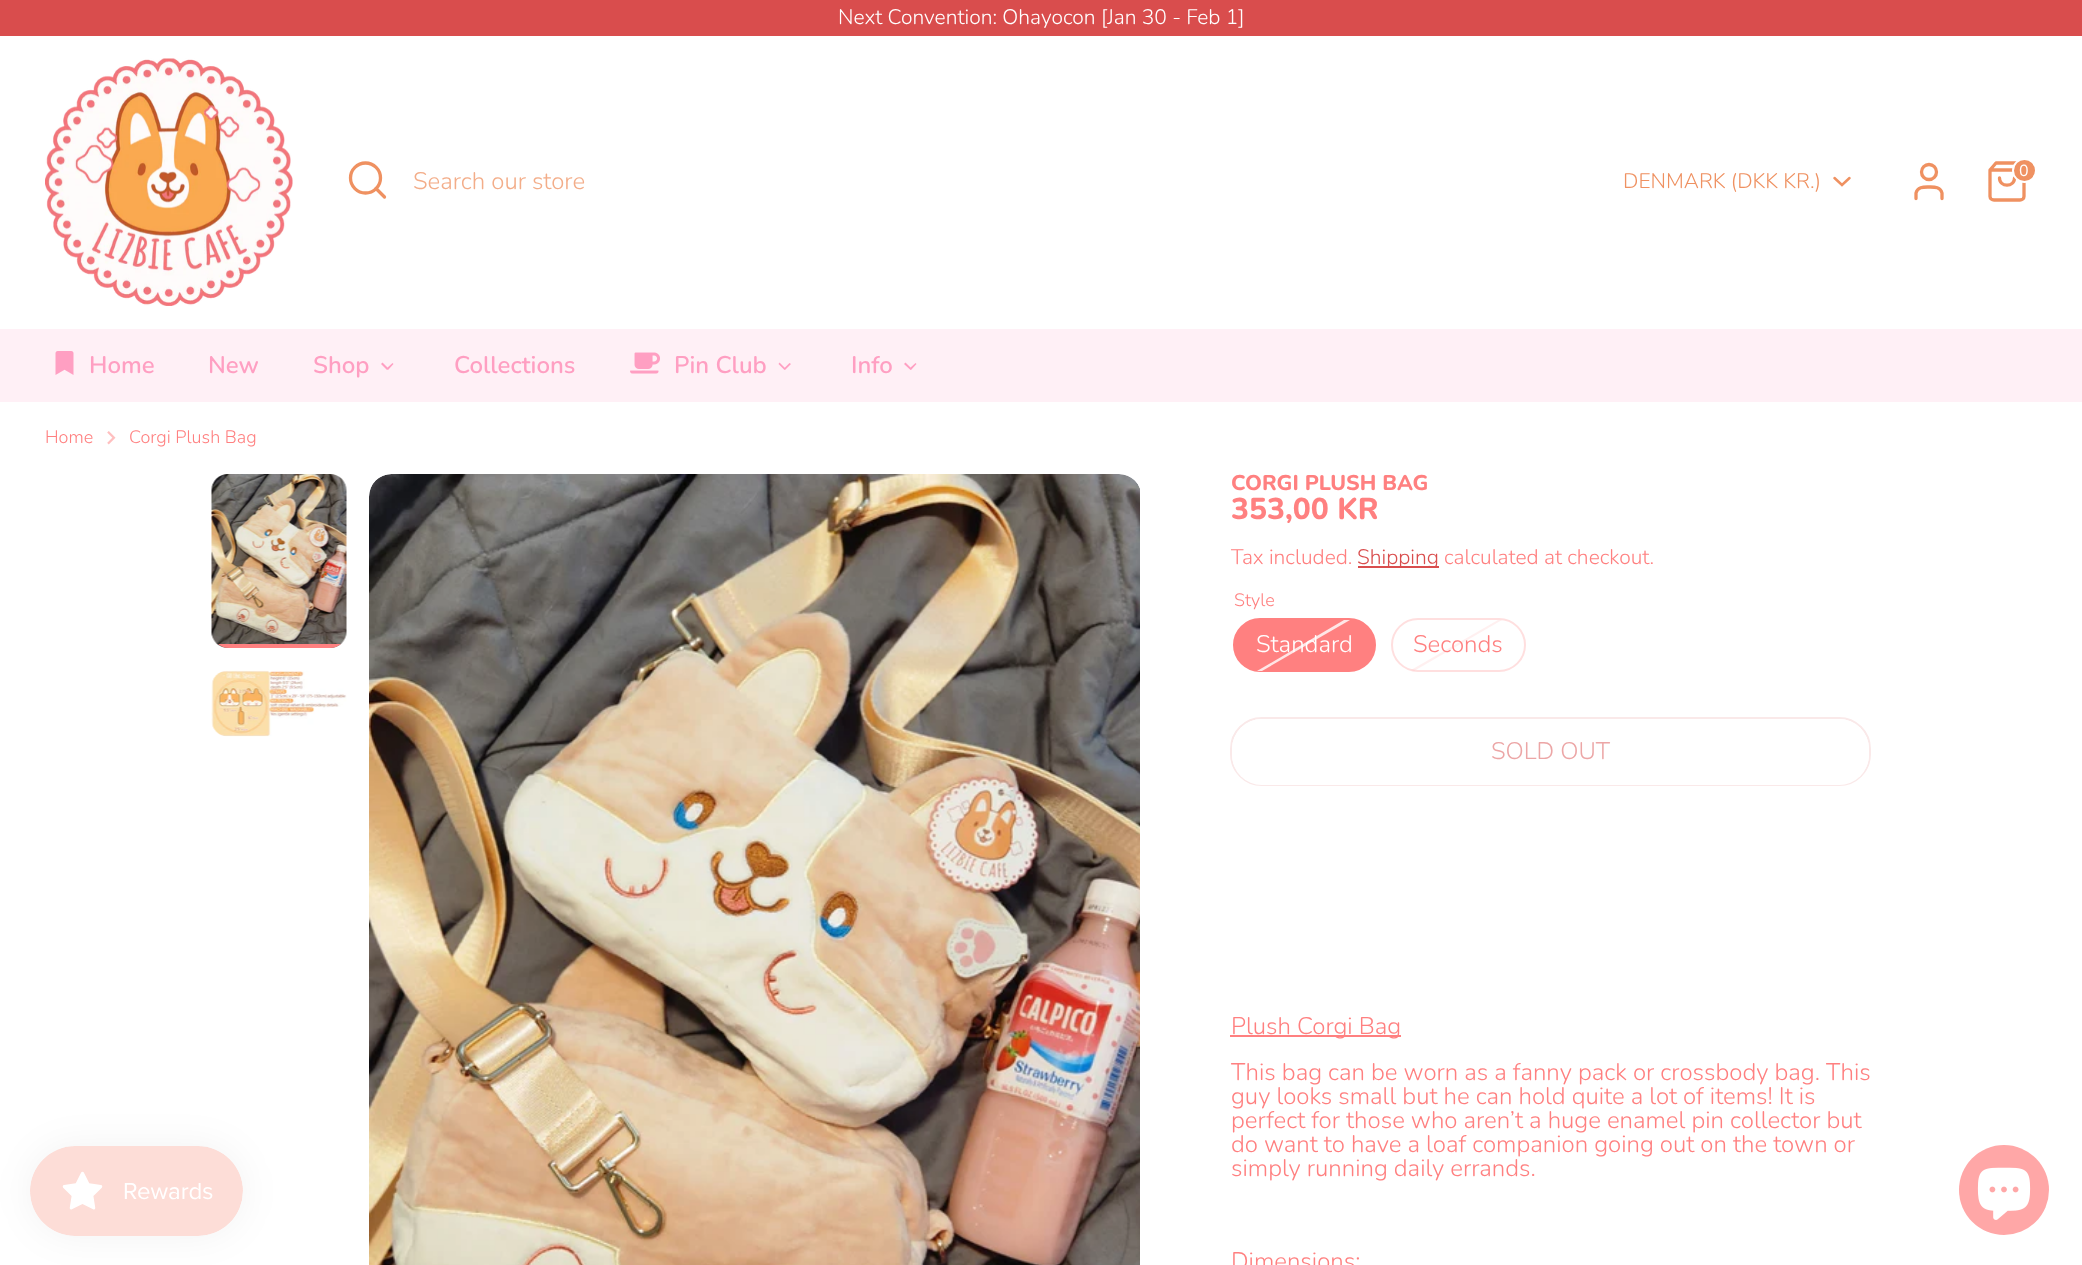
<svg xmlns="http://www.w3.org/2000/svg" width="2082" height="1265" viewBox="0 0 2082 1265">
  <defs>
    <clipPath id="clip1"><rect x="212" y="474" width="135" height="174" rx="17"/></clipPath>
  </defs>
  <rect width="100%" height="100%" fill="#fff"/>
  <path d="M0 0h2082v36H0z" fill="#d94d4d"/>
  <image x="45" y="58" width="248" height="248" href="img/1.png"/>
  <circle cx="365.5" cy="178" r="15" fill="none" stroke="#ef9161" stroke-width="3.3"/>
  <path d="M384.5 197L376 188.5" fill="none" stroke="#ef9161" stroke-width="3.3" stroke-linecap="round" stroke-linejoin="round"/>
  <path d="M1942 198.5V193C1940.5 186.5 1934 187 1929 187C1924 187 1917.5 186.5 1916 193V198.5" fill="none" stroke="#ef9161" stroke-width="3.3" stroke-linecap="round" stroke-linejoin="round"/>
  <circle cx="1929" cy="172" r="7.5" fill="none" stroke="#ef9161" stroke-width="3.3"/>
  <path d="M1996 163L1990 170V196.5C1990 198.5 1992 200 1994 200H2020C2022 200 2024 198.5 2024 196.5V170L2018 163ZM1990 170H2024M2014.5 178C2014.5 187.5 1999.5 187.5 1999.5 178" fill="none" stroke="#ef9161" stroke-width="3.3" stroke-linecap="round" stroke-linejoin="round"/>
  <circle cx="2024.5" cy="170.5" r="11.5" fill="#ef9161" stroke="#fff" stroke-width="2"/>
  <path d="M1834.5 178L1842 185L1849.5 178" fill="none" stroke="#ef9161" stroke-width="2.5" stroke-linecap="round"/>
  <path d="M0 329h2082v73H0z" fill="#fff0f6"/>
  <image x="55" y="351" width="19" height="24" href="img/2.png"/>
  <path d="M392.5 363L393.5 364L388 370L386.5 368.5Z" fill="#ff9fc2"/>
  <path d="M382.5 362.5L388.5 368.5L387 370L381 364Z" fill="#ff9fc2"/>
  <image x="630" y="352" width="30" height="22" href="img/3.png"/>
  <path d="M789.5 363L791 364L785 370L784 368.5Z" fill="#ff9fc2"/>
  <path d="M779.5 362.5L785.5 368.5L784.5 370L778.5 364Z" fill="#ff9fc2"/>
  <path d="M915.5 363L916.5 364L911 370L909.5 368.5Z" fill="#ff9fc2"/>
  <path d="M905.5 362.5L911.5 368.5L910.5 370L904 364Z" fill="#ff9fc2"/>
  <image x="107" y="431" width="9" height="14" href="img/4.png"/>
  <rect x="30" y="1146" width="213" height="90" rx="45" fill="#0000000d" filter="blur(19px)"/>
  <image x="30" y="1146" width="213" height="90" href="img/5.png"/>
  <image x="211" y="474" width="136" height="174" href="img/6.png"/>
  <g clip-path="url(#clip1)">
    <path d="M212 644h135v4H212z" fill="#ff8080"/>
  </g>
  <image x="211" y="670" width="136" height="67" href="img/7.png"/>
  <image x="369" y="474" width="771" height="791" href="img/8.png"/>
  <path d="M1358 566h81v2H1358z" fill="#d94d4d"/>
  <rect x="1234" y="619" width="141" height="52" rx="26" fill="#ff8080" stroke="#ff8080" stroke-width="2"/>
  <rect x="1392" y="619" width="133" height="52" rx="26" fill="none" stroke="#ffdfdf" stroke-width="2"/>
  <path d="M1502 620L1414 671L1411 670L1498 620Z" fill="#ff80801f"/>
  <rect x="1231" y="718" width="639" height="67" rx="31" fill="none" stroke="#fae9e9" stroke-width="2"/>
  <rect x="1232" y="719" width="637" height="66" rx="30" fill="#fff"/>
  <path d="M1230 1035h171v2H1230z" fill="#ff8080"/>
  <circle cx="2004" cy="1190" r="45" fill="#ffa7a7"/>
  <image x="1977" y="1167" width="54" height="53" href="img/9.png"/>
  <text x="838" y="24" font-family="Nunito" font-size="21" font-weight="300" fill="#fff">Next Convention: Ohayocon [Jan 30 - Feb 1]</text>
  <text x="413" y="189" font-family="Nunito" font-size="24" font-weight="300" fill="#f3ad89">Search our store</text>
  <text x="2019" y="176" font-family="Nunito" font-size="16" fill="#fff">0</text>
  <text x="1623" y="188" font-family="Nunito" font-size="21" font-weight="300" fill="#ef9161">DENMARK (DKK KR.)</text>
  <g font-family="Nunito" font-size="24" font-weight="600" fill="#ff9fc2">
    <text x="89" y="373">Home</text>
    <text x="208" y="373">New</text>
    <text x="313" y="373">Shop</text>
    <text x="454" y="373">Collections</text>
    <text x="674" y="373">Pin Club</text>
    <text x="851" y="373">Info</text>
  </g>
  <g font-family="Nunito" font-size="18" font-weight="300" fill="#ff8080">
    <text x="45" y="443">Home</text>
    <text x="129" y="443">Corgi Plush Bag</text>
  </g>
  <text x="1231" y="490" font-family="Nunito" font-size="21.25" font-weight="800" fill="#ff8080">CORGI PLUSH BAG</text>
  <text x="1231" y="519" font-family="Nunito" font-size="30" font-weight="800" fill="#ff8080">353,00 KR</text>
  <text x="1231" y="564" font-family="Nunito" font-size="21" font-weight="300" fill="#ff8080">Tax included.</text>
  <text x="1357" y="564" font-family="Nunito" font-size="21" font-weight="300" fill="#d94d4d">Shipping</text>
  <text x="1444" y="564" font-family="Nunito" font-size="21" font-weight="300" fill="#ff8080">calculated at checkout.</text>
  <text x="1234" y="606" font-family="Nunito" font-size="18" font-weight="300" fill="#ff8080">Style</text>
  <text x="1256" y="652" font-family="Nunito" font-size="24" font-weight="300" fill="#fff">Standard</text>
  <path d="M1350 620L1262 671H1257L1344 620Z" fill="#ffffffcc"/>
  <text x="1413" y="652" font-family="Nunito" font-size="24" font-weight="300" fill="#ff8080">Seconds</text>
  <text x="1491" y="759" font-family="Nunito" font-size="24" font-weight="300" fill="#eca6a6">SOLD OUT</text>
  <g font-family="Nunito" font-size="24" font-weight="300" fill="#ff8080">
    <text x="1231" y="1034">Plush Corgi Bag</text>
    <text x="1231" y="1080">This bag can be worn as a fanny pack or crossbody bag. This</text>
    <text x="1231" y="1104">guy looks small but he can hold quite a lot of items! It is</text>
    <text x="1231" y="1128">perfect for those who aren’t a huge enamel pin collector but</text>
    <text x="1231" y="1152">do want to have a loaf companion going out on the town or</text>
    <text x="1231" y="1176">simply running daily errands.</text>
    <text x="1231" y="1269">Dimensions:</text>
  </g>
</svg>
